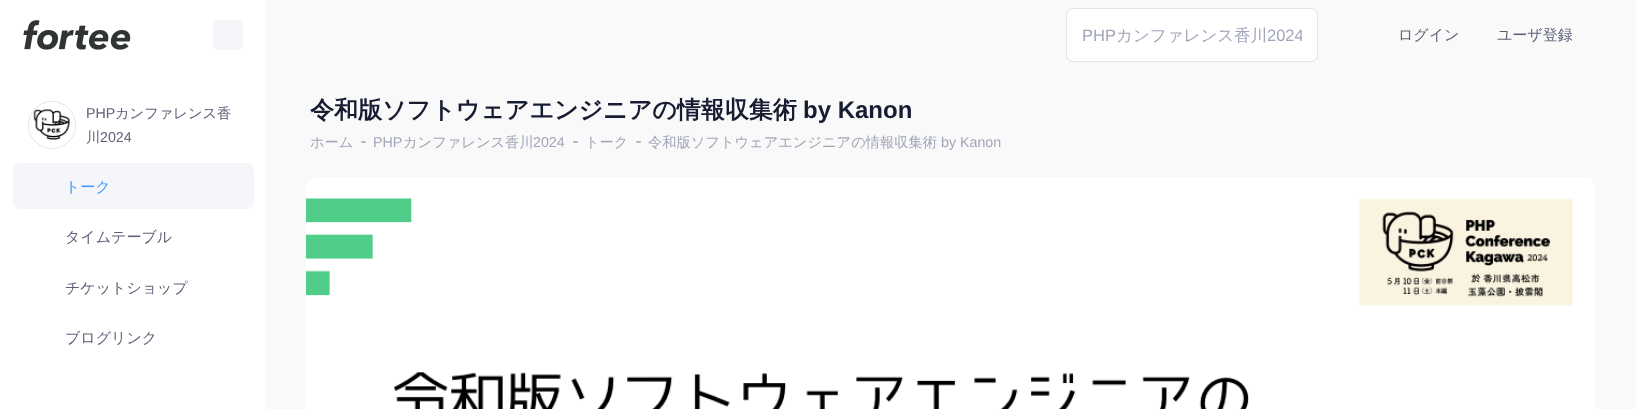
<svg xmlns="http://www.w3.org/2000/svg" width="1636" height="409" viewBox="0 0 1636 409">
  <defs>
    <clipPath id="clip1"><path d="M1082 25h220v22H1082z"/></clipPath>
  </defs>
  <rect width="100%" height="100%" fill="#f9f9f9"/>
  <rect x="1066.5" y="8.5" width="251" height="53" rx="6.5" fill="#fff" stroke="#e1e3ea"/>
  <path d="M0 0h265v409H0z" fill="#fff"/>
  <image x="23" y="20" width="108" height="30" href="img/1.png"/>
  <rect x="213" y="20" width="30" height="30" rx="6" fill="#f4f6fa"/>
  <circle cx="52" cy="125" r="23.5" fill="none" stroke="#e1e3ea"/>
  <image x="29" y="102" width="46" height="46" href="img/2.png"/>
  <rect x="13" y="163" width="241" height="46" rx="7" fill="#f4f6fa"/>
  <rect x="361" y="141" width="5" height="2" rx="1" fill="#b5b5c3"/>
  <rect x="573" y="141" width="5" height="2" rx="1" fill="#b5b5c3"/>
  <rect x="636" y="141" width="5" height="2" rx="1" fill="#b5b5c3"/>
  <image x="306" y="177" width="1289" height="232" href="img/3.png"/>
  <text x="1082" y="41" font-family="Liberation Sans" font-size="16.5" fill="#a1a5b7">PHP</text>
  <text x="1116" y="41" font-family="WenQuanYi Zen Hei" font-size="16.5" font-weight="500" fill="#a1a5b7">カンファレンス香川</text>
  <g clip-path="url(#clip1)">
    <text x="1267" y="41" font-family="Liberation Sans" font-size="16.5" fill="#a1a5b7">2024</text>
  </g>
  <g font-family="WenQuanYi Zen Hei" font-size="15" font-weight="500" fill="#5e6278">
    <text x="1398" y="40">ログイン</text>
    <text x="1497" y="40">ユーザ登録</text>
  </g>
  <text x="86" y="118" font-family="Liberation Sans" font-size="14.25" fill="#5e6278">PHP</text>
  <g font-family="WenQuanYi Zen Hei" font-size="14.25" font-weight="500" fill="#5e6278">
    <text x="115" y="118">カンファレンス香</text>
    <text x="86" y="142">川</text>
  </g>
  <text x="100" y="142" font-family="Liberation Sans" font-size="14.25" fill="#5e6278">2024</text>
  <text x="65" y="192" font-family="WenQuanYi Zen Hei" font-size="15" font-weight="500" fill="#3e97ff">トーク</text>
  <g font-family="WenQuanYi Zen Hei" font-size="15" font-weight="500" fill="#5e6278">
    <text x="65" y="242">タイムテーブル</text>
    <text x="65" y="293">チケットショップ</text>
    <text x="65" y="343">ブログリンク</text>
  </g>
  <text x="310" y="118" font-family="WenQuanYi Zen Hei" font-size="24" font-weight="bold" fill="#181c32">令和版ソフトウェアエンジニアの情報収集術</text>
  <text x="803" y="118" font-family="Liberation Sans" font-size="24" font-weight="bold" fill="#181c32">by Kanon</text>
  <text x="310" y="147" font-family="WenQuanYi Zen Hei" font-size="14.25" font-weight="500" fill="#a1a5b7">ホーム</text>
  <text x="373" y="147" font-family="Liberation Sans" font-size="14.25" fill="#a1a5b7">PHP</text>
  <text x="403" y="147" font-family="WenQuanYi Zen Hei" font-size="14.25" font-weight="500" fill="#a1a5b7">カンファレンス香川</text>
  <text x="533" y="147" font-family="Liberation Sans" font-size="14.25" fill="#a1a5b7">2024</text>
  <g font-family="WenQuanYi Zen Hei" font-size="14.25" font-weight="500" fill="#a1a5b7">
    <text x="585" y="147">トーク</text>
    <text x="648" y="147">令和版ソフトウェアエンジニアの情報収集術</text>
  </g>
  <text x="941" y="147" font-family="Liberation Sans" font-size="14.25" fill="#a1a5b7">by Kanon</text>
</svg>
